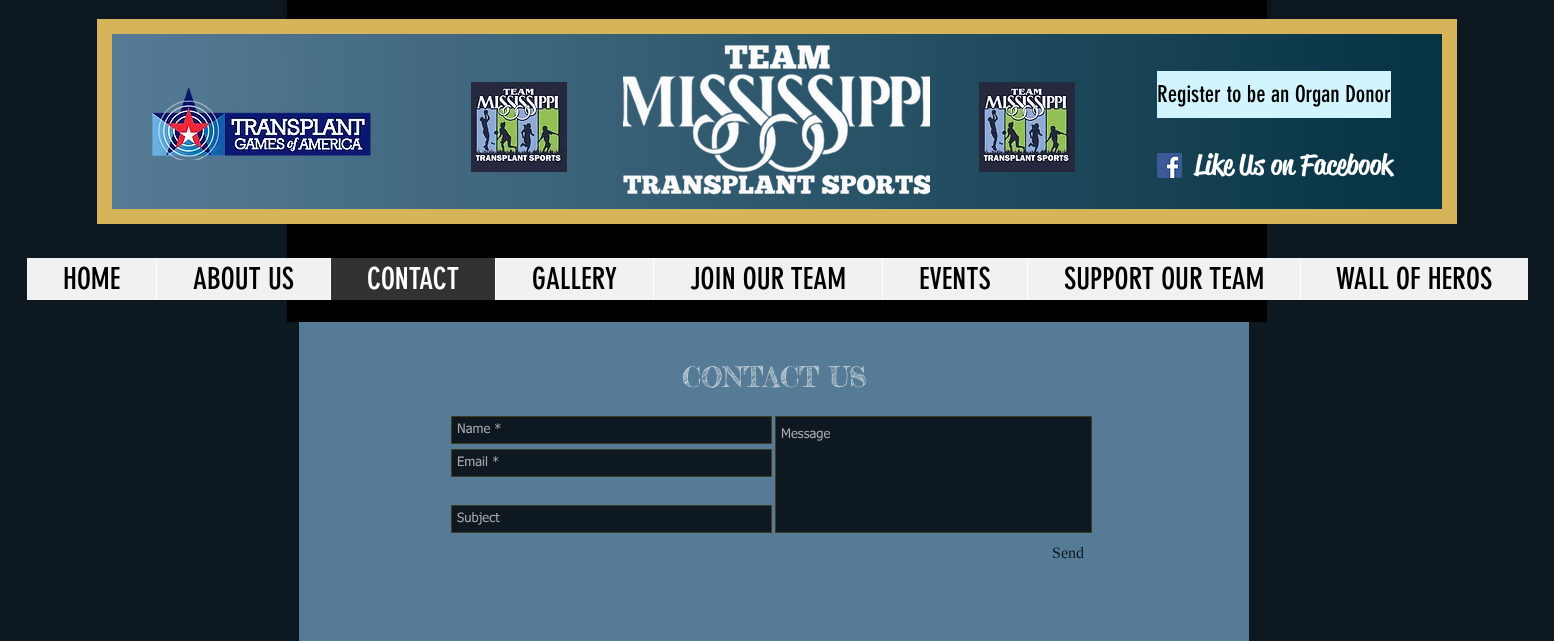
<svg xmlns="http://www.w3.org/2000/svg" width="1554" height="641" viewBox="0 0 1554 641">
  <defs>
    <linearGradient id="g1" gradientUnits="userSpaceOnUse" x1="112" y1="122" x2="1442" y2="121"><stop offset="0" stop-color="#567b96"/><stop offset="1" stop-color="#053342"/></linearGradient>
  </defs>
  <rect width="100%" height="100%" fill="#0e1821"/>
  <image x="282" y="0" width="5" height="19" href="img/1.png"/>
  <path d="M287 0h980v322H287z" fill="#000"/>
  <image x="1267" y="0" width="5" height="19" href="img/2.png"/>
  <path d="M112 34h1330v175H112z" fill="url(#g1)"/>
  <path d="M104.5 26.5h1345v190H104.5z" fill="none" stroke="#d6b55a" stroke-width="15"/>
  <image x="152" y="88" width="219" height="72" href="img/3.png"/>
  <image x="471" y="82" width="96" height="90" href="img/4.png"/>
  <image x="623" y="45" width="307" height="150" href="img/5.png"/>
  <image x="979" y="82" width="96" height="90" href="img/4.png"/>
  <path d="M1157 71h234v47H1157z" fill="#d1f4ff"/>
  <image x="1157" y="153" width="25" height="25" href="img/6.png"/>
  <path d="M27 258h1501v42H27z" fill="#f1f1f1"/>
  <path d="M156 258h1v42H156z" fill="#fff"/>
  <path d="M331 258h164v42H331z" fill="#323232"/>
  <path d="M330 258h1v42H330z" fill="#fff"/>
  <path d="M495 258h1v42H495z" fill="#fff"/>
  <path d="M653 258h1v42H653z" fill="#fff"/>
  <path d="M882 258h1v42H882z" fill="#fff"/>
  <path d="M1027 258h1v42H1027z" fill="#fff"/>
  <path d="M1300 258h1v42H1300z" fill="#fff"/>
  <path d="M299 322h950v319H299z" fill="#567b96"/>
  <path d="M451.5 416.5h320v27H451.5z" fill="#0e1821" stroke="#3f3c1f"/>
  <path d="M775.5 416.5h316v116H775.5z" fill="#0e1821" stroke="#3f3c1f"/>
  <path d="M451.5 449.5h320v27H451.5z" fill="#0e1821" stroke="#3f3c1f"/>
  <path d="M451.5 505.5h320v27H451.5z" fill="#0e1821" stroke="#3f3c1f"/>
  <text x="1157" y="102" font-family="'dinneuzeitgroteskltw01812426'" font-size="23" fill="#000">Register to be an Organ Donor</text>
  <text x="1194" y="174" font-family="'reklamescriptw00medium'" font-size="28" font-weight="500" fill="#fff">Like Us on Facebook</text>
  <g font-family="'dinneuzeitgroteskltw01812426'" font-size="30" fill="#000">
    <text x="63" y="289">HOME</text>
    <text x="193" y="289">ABOUT US</text>
  </g>
  <text x="367" y="289" font-family="'dinneuzeitgroteskltw01812426'" font-size="30" fill="#fff">CONTACT</text>
  <g font-family="'dinneuzeitgroteskltw01812426'" font-size="30" fill="#000">
    <text x="532" y="289">GALLERY</text>
    <text x="690" y="289">JOIN OUR TEAM</text>
    <text x="919" y="289">EVENTS</text>
    <text x="1064" y="289">SUPPORT OUR TEAM</text>
    <text x="1336" y="289">WALL OF HEROS</text>
  </g>
  <text x="682" y="387" font-family="Fredericka the Great" font-size="28" fill="#c5d0d9">CONTACT US</text>
  <g font-family="tahoma" font-size="13" fill="#a9a9a9">
    <text x="457" y="433">Name *</text>
    <text x="781" y="438">Message</text>
    <text x="457" y="466">Email *</text>
    <text x="457" y="522">Subject</text>
  </g>
  <text x="1052" y="558" font-family="Liberation Serif" font-size="16" fill="#0e1821">Send</text>
</svg>
